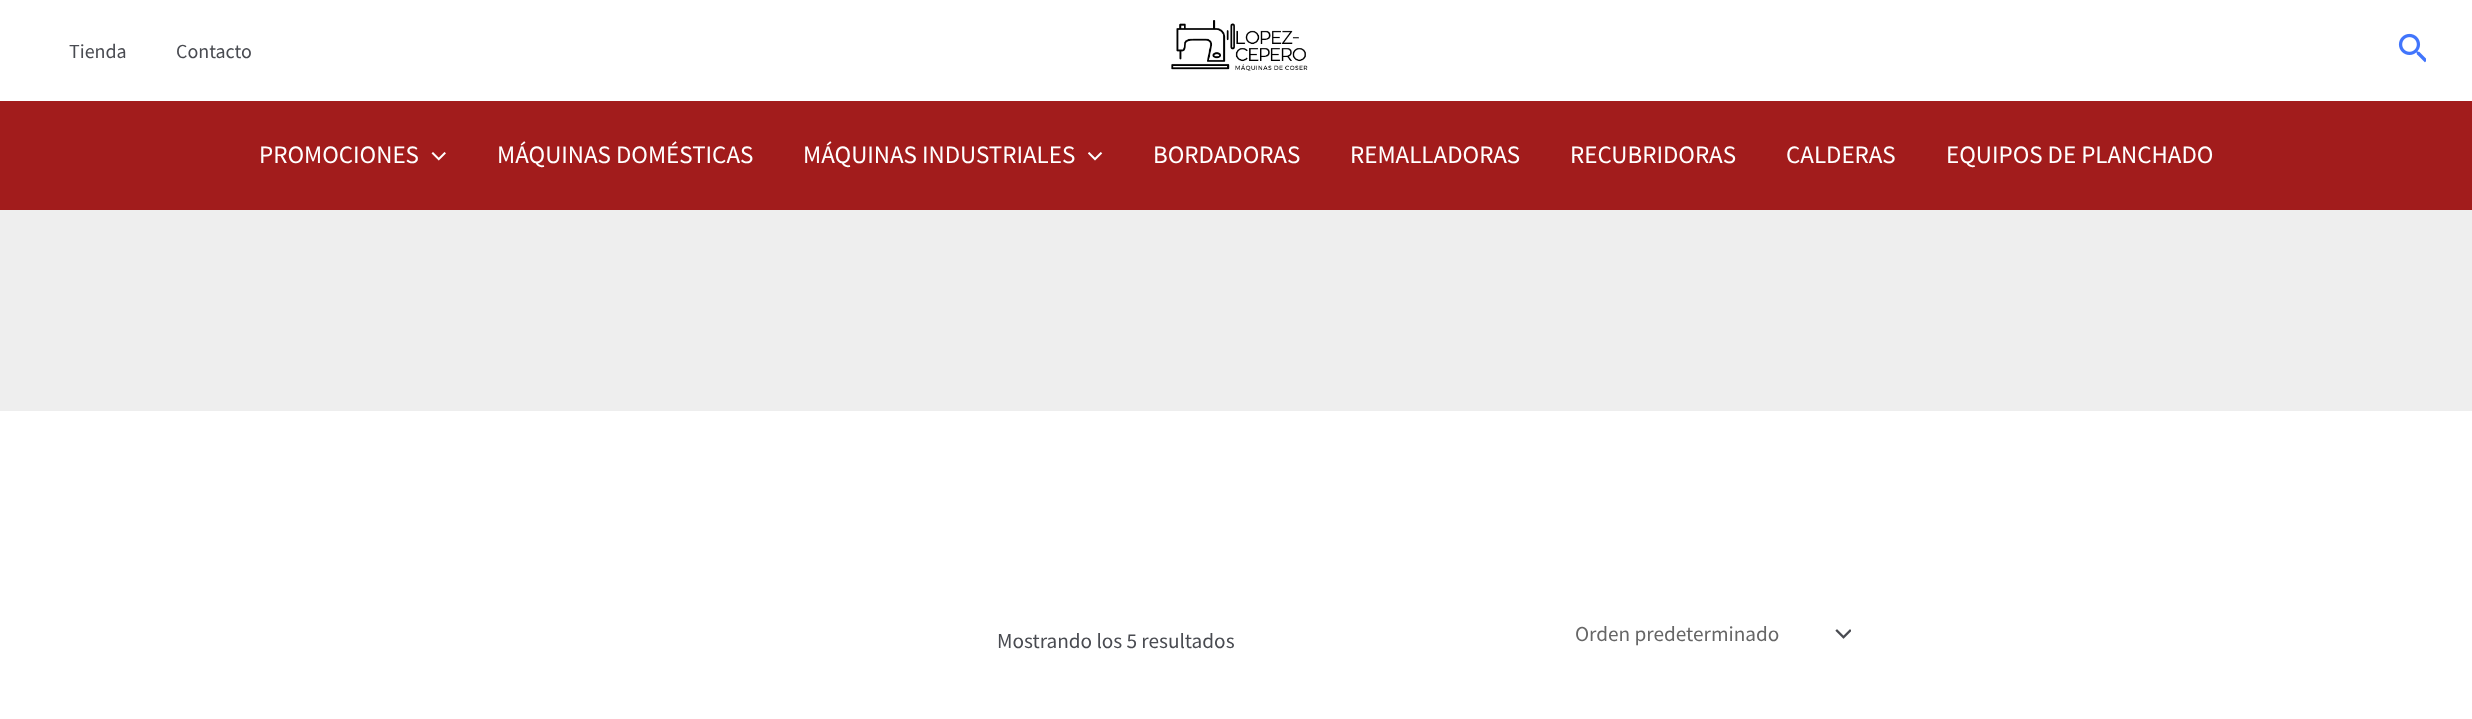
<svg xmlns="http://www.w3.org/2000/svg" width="2472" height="719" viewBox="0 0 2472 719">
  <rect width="100%" height="100%" fill="#fff"/>
  <image x="1171" y="20" width="137" height="51" href="img/1.png"/>
  <image x="2398" y="33" width="28" height="30" href="img/2.png"/>
  <path d="M0 101h2472v109H0z" fill="#a21c1c"/>
  <image x="431" y="152" width="15" height="9" href="img/3.png"/>
  <image x="1088" y="152" width="15" height="9" href="img/4.png"/>
  <path d="M0 210h2472v201H0z" fill="#eee"/>
  <image x="1835" y="629" width="16" height="10" href="img/5.png"/>
  <g font-family="Source Sans Pro" font-size="20" fill="#494b51">
    <text x="69" y="58">Tienda</text>
    <text x="176" y="58">Contacto</text>
  </g>
  <g font-family="Source Sans Pro" font-size="25" fill="#fff">
    <text x="259" y="163">PROMOCIONES</text>
    <text x="497" y="163">MÁQUINAS DOMÉSTICAS</text>
    <text x="803" y="163">MÁQUINAS INDUSTRIALES</text>
    <text x="1153" y="163">BORDADORAS</text>
    <text x="1350" y="163">REMALLADORAS</text>
    <text x="1570" y="163">RECUBRIDORAS</text>
    <text x="1786" y="163">CALDERAS</text>
    <text x="1946" y="163">EQUIPOS DE PLANCHADO</text>
  </g>
  <text x="997" y="648" font-family="Source Sans Pro" font-size="21.25" fill="#494b51">Mostrando los 5 resultados</text>
  <text x="1575" y="641" font-family="Source Sans Pro" font-size="21.25" fill="#666">Orden predeterminado</text>
</svg>
